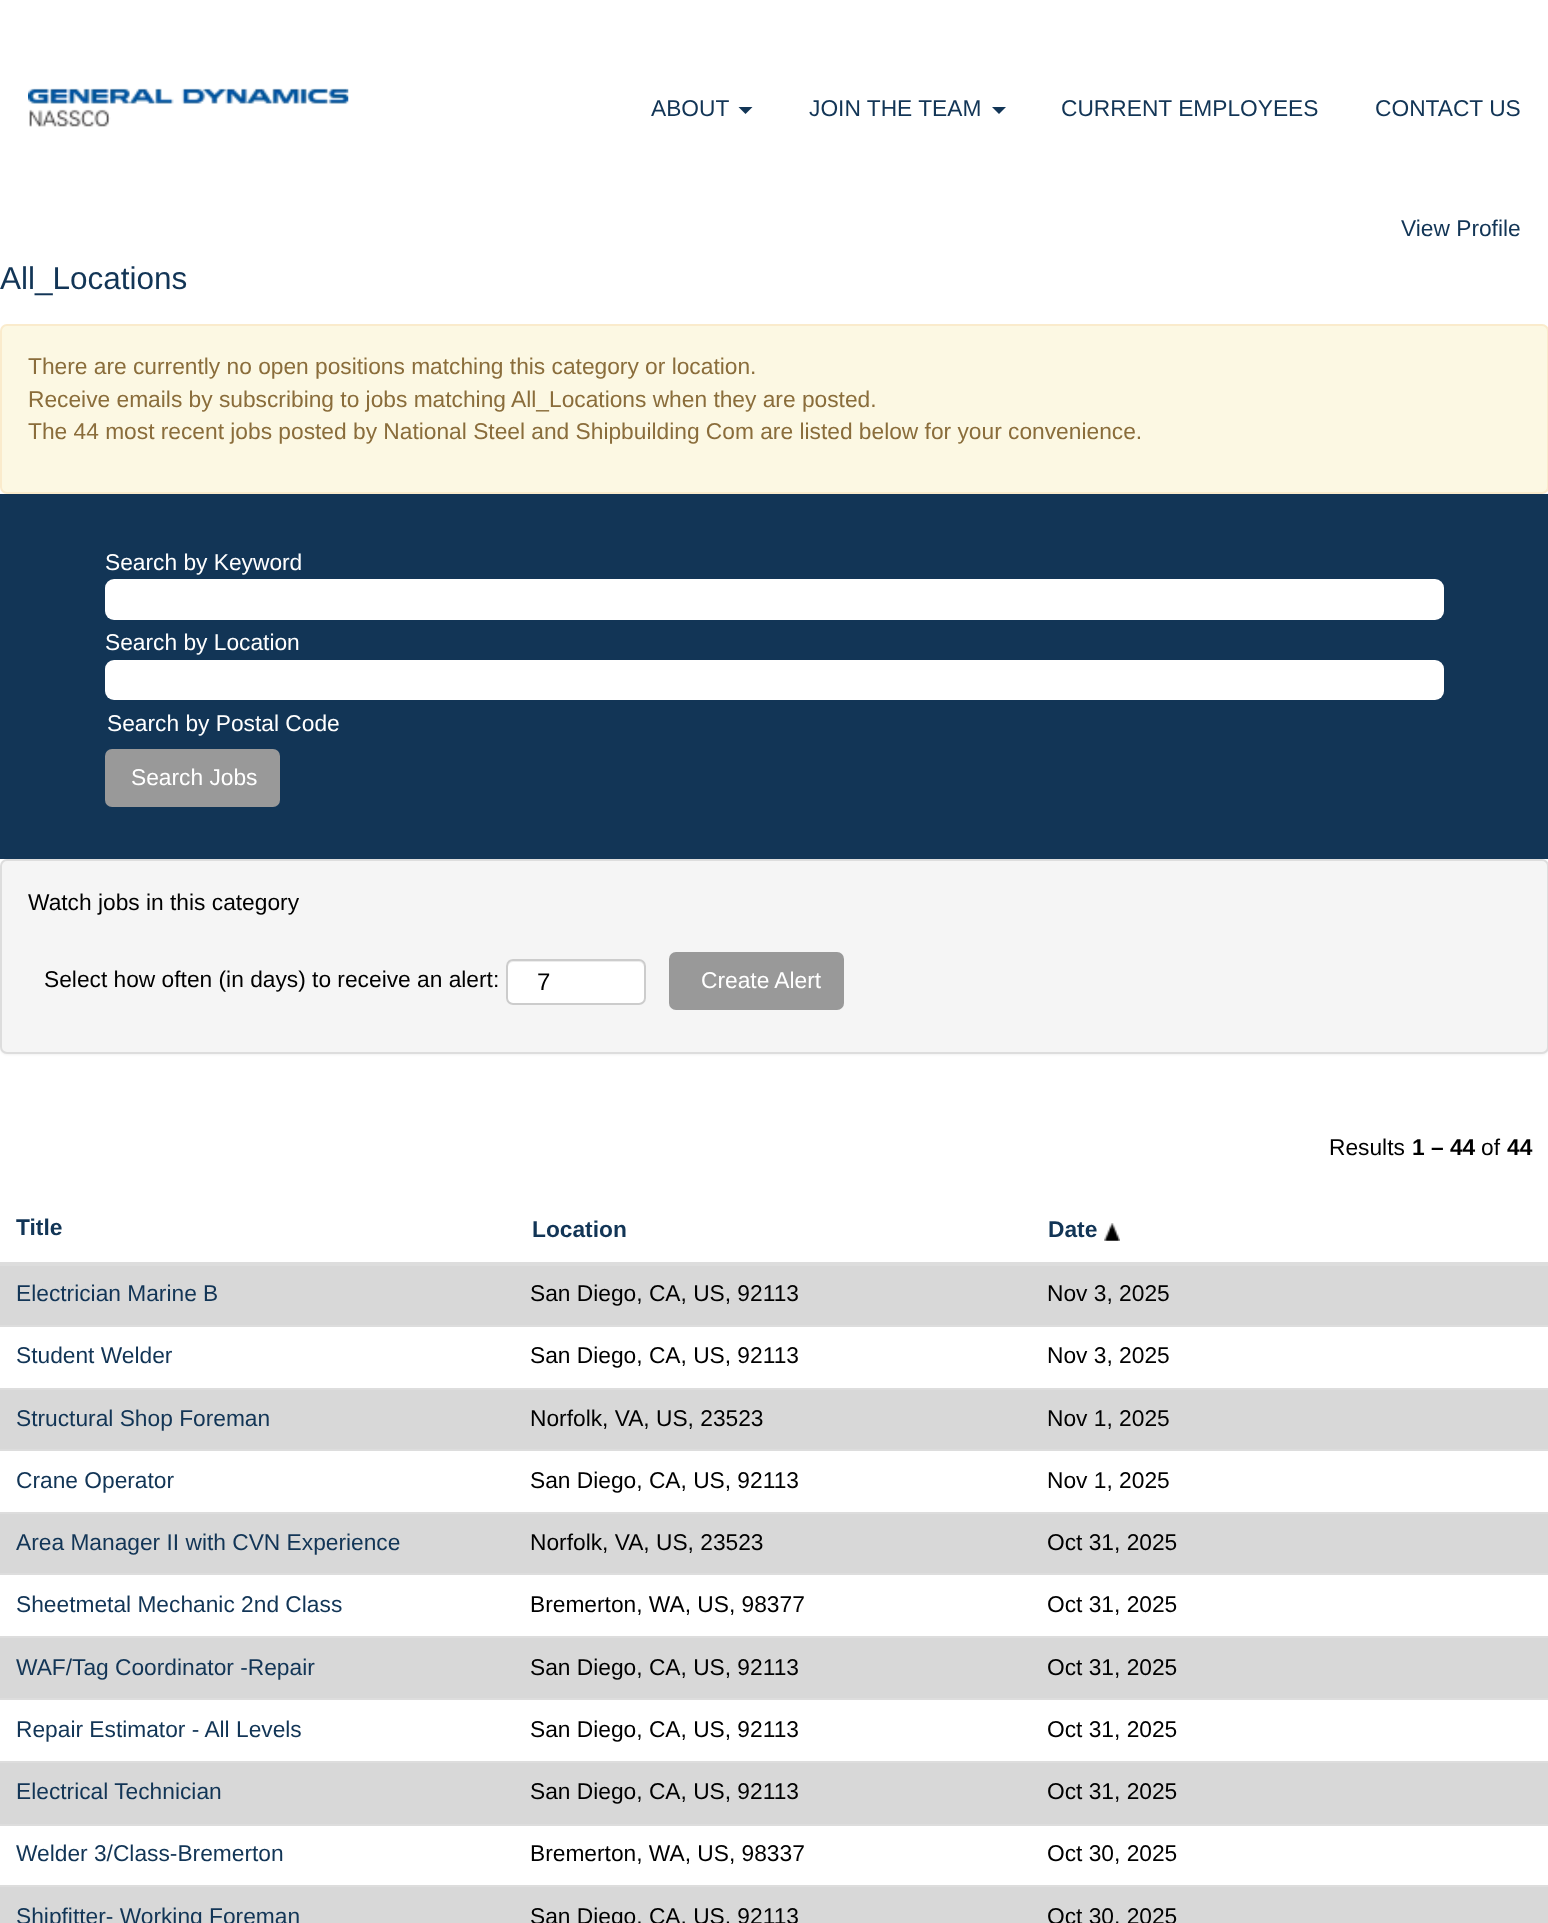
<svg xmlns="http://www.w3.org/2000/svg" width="1548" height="1923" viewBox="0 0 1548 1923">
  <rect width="100%" height="100%" fill="#fff"/>
  <image x="28" y="88" width="321" height="39" href="img/1.png"/>
  <path d="M738.5 107H752.5L745.5 114Z" fill="#123556"/>
  <path d="M992 107H1006L999 114Z" fill="#123556"/>
  <rect x="1" y="325" width="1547" height="168" rx="6" fill="#fcf8e3" stroke="#faebcc" stroke-width="2"/>
  <path d="M0 494h1548v365H0z" fill="#123556"/>
  <rect x="105" y="579" width="1339" height="41" rx="9" fill="#fff"/>
  <rect x="105" y="660" width="1339" height="40" rx="9" fill="#fff"/>
  <rect x="105" y="749" width="175" height="58" rx="7" fill="#999"/>
  <rect y="861" width="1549" height="194" rx="7" fill="#0000000d" filter="blur(1px)"/>
  <rect x="1" y="860" width="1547" height="193" rx="6" fill="#f5f5f5" stroke="#ddd" stroke-width="2"/>
  <rect x="506" y="959" width="140" height="46" rx="7" fill="#fff"/>
  <path d="M513 962H639C642 962 644 965 644 968V966C644 963 642 961 639 961H513C510 961 508 963 508 966V968C508 965 510 962 513 962Z" fill="#ececec"/>
  <rect x="507" y="960" width="138" height="44" rx="6" fill="none" stroke="#ccc" stroke-width="2"/>
  <rect x="669" y="952" width="175" height="58" rx="7" fill="#999"/>
  <path d="M0 1262h1548v4H0z" fill="#ddd"/>
  <image x="1104" y="1223" width="16" height="18" href="img/2.png"/>
  <path d="M0 1266h1548v59H0z" fill="#d8d8d8"/>
  <path d="M0 1325h1548v2H0z" fill="#ddd"/>
  <path d="M0 1390h1548v59H0z" fill="#d8d8d8"/>
  <path d="M0 1388h1548v2H0z" fill="#ddd"/>
  <path d="M0 1449h1548v2H0z" fill="#ddd"/>
  <path d="M0 1514h1548v59H0z" fill="#d8d8d8"/>
  <path d="M0 1512h1548v2H0z" fill="#ddd"/>
  <path d="M0 1573h1548v2H0z" fill="#ddd"/>
  <path d="M0 1638h1548v60H0z" fill="#d8d8d8"/>
  <path d="M0 1636h1548v2H0z" fill="#ddd"/>
  <path d="M0 1698h1548v2H0z" fill="#ddd"/>
  <path d="M0 1763h1548v61H0z" fill="#d8d8d8"/>
  <path d="M0 1761h1548v2H0z" fill="#ddd"/>
  <path d="M0 1824h1548v2H0z" fill="#ddd"/>
  <path d="M0 1887h1548v36H0z" fill="#d8d8d8"/>
  <path d="M0 1885h1548v2H0z" fill="#ddd"/>
  <g font-family="Liberation Sans" font-size="22.75" fill="#123556">
    <text x="651" y="116">ABOUT</text>
    <text x="809" y="116">JOIN THE TEAM</text>
    <text x="1061" y="116">CURRENT EMPLOYEES</text>
    <text x="1375" y="116">CONTACT US</text>
    <text x="1401" y="236">View Profile</text>
  </g>
  <text x="0" y="289" font-family="Liberation Sans" font-size="31.5" fill="#123556">All_Locations</text>
  <g font-family="Liberation Sans" font-size="22.75" fill="#8a6d3b">
    <text x="28" y="374">There are currently no open positions matching this category or location.</text>
    <text x="28" y="407">Receive emails by subscribing to jobs matching All_Locations when they are posted.</text>
    <text x="28" y="439">The 44 most recent jobs posted by National Steel and Shipbuilding Com are listed below for your convenience.</text>
  </g>
  <g font-family="Liberation Sans" font-size="22.75" fill="#fff">
    <text x="105" y="570">Search by Keyword</text>
    <text x="105" y="650">Search by Location</text>
    <text x="107" y="731">Search by Postal Code</text>
    <text x="131" y="785">Search Jobs</text>
  </g>
  <g font-family="Liberation Sans" font-size="22.75" fill="#000">
    <text x="28" y="910">Watch jobs in this category</text>
    <text x="44" y="987">Select how often (in days) to receive an alert:</text>
  </g>
  <text x="537" y="990" font-family="Liberation Sans" font-size="24" fill="#000">7</text>
  <text x="701" y="988" font-family="Liberation Sans" font-size="22.75" fill="#fff">Create Alert</text>
  <text x="1329" y="1155" font-family="Liberation Sans" font-size="22.75" fill="#000">Results</text>
  <text x="1412" y="1155" font-family="Liberation Sans" font-size="22.75" font-weight="bold" fill="#000">1 – 44</text>
  <text x="1481" y="1155" font-family="Liberation Sans" font-size="22.75" fill="#000">of</text>
  <text x="1507" y="1155" font-family="Liberation Sans" font-size="22.75" font-weight="bold" fill="#000">44</text>
  <g font-family="Liberation Sans" font-size="22.75" font-weight="bold" fill="#123556">
    <text x="16" y="1235">Title</text>
    <text x="532" y="1237">Location</text>
    <text x="1048" y="1237">Date</text>
  </g>
  <text x="16" y="1301" font-family="Liberation Sans" font-size="22.75" fill="#123556">Electrician Marine B</text>
  <g font-family="Liberation Sans" font-size="22.75" fill="#000">
    <text x="530" y="1301">San Diego, CA, US, 92113</text>
    <text x="1047" y="1301">Nov 3, 2025</text>
  </g>
  <text x="16" y="1363" font-family="Liberation Sans" font-size="22.75" fill="#123556">Student Welder</text>
  <g font-family="Liberation Sans" font-size="22.75" fill="#000">
    <text x="530" y="1363">San Diego, CA, US, 92113</text>
    <text x="1047" y="1363">Nov 3, 2025</text>
  </g>
  <text x="16" y="1426" font-family="Liberation Sans" font-size="22.75" fill="#123556">Structural Shop Foreman</text>
  <g font-family="Liberation Sans" font-size="22.75" fill="#000">
    <text x="530" y="1426">Norfolk, VA, US, 23523</text>
    <text x="1047" y="1426">Nov 1, 2025</text>
  </g>
  <text x="16" y="1488" font-family="Liberation Sans" font-size="22.75" fill="#123556">Crane Operator</text>
  <g font-family="Liberation Sans" font-size="22.75" fill="#000">
    <text x="530" y="1488">San Diego, CA, US, 92113</text>
    <text x="1047" y="1488">Nov 1, 2025</text>
  </g>
  <text x="16" y="1550" font-family="Liberation Sans" font-size="22.75" fill="#123556">Area Manager II with CVN Experience</text>
  <g font-family="Liberation Sans" font-size="22.75" fill="#000">
    <text x="530" y="1550">Norfolk, VA, US, 23523</text>
    <text x="1047" y="1550">Oct 31, 2025</text>
  </g>
  <text x="16" y="1612" font-family="Liberation Sans" font-size="22.75" fill="#123556">Sheetmetal Mechanic 2nd Class</text>
  <g font-family="Liberation Sans" font-size="22.75" fill="#000">
    <text x="530" y="1612">Bremerton, WA, US, 98377</text>
    <text x="1047" y="1612">Oct 31, 2025</text>
  </g>
  <text x="16" y="1675" font-family="Liberation Sans" font-size="22.75" fill="#123556">WAF/Tag Coordinator -Repair</text>
  <g font-family="Liberation Sans" font-size="22.75" fill="#000">
    <text x="530" y="1675">San Diego, CA, US, 92113</text>
    <text x="1047" y="1675">Oct 31, 2025</text>
  </g>
  <text x="16" y="1737" font-family="Liberation Sans" font-size="22.75" fill="#123556">Repair Estimator - All Levels</text>
  <g font-family="Liberation Sans" font-size="22.75" fill="#000">
    <text x="530" y="1737">San Diego, CA, US, 92113</text>
    <text x="1047" y="1737">Oct 31, 2025</text>
  </g>
  <text x="16" y="1799" font-family="Liberation Sans" font-size="22.75" fill="#123556">Electrical Technician</text>
  <g font-family="Liberation Sans" font-size="22.75" fill="#000">
    <text x="530" y="1799">San Diego, CA, US, 92113</text>
    <text x="1047" y="1799">Oct 31, 2025</text>
  </g>
  <text x="16" y="1861" font-family="Liberation Sans" font-size="22.75" fill="#123556">Welder 3/Class-Bremerton</text>
  <g font-family="Liberation Sans" font-size="22.75" fill="#000">
    <text x="530" y="1861">Bremerton, WA, US, 98337</text>
    <text x="1047" y="1861">Oct 30, 2025</text>
  </g>
  <text x="16" y="1924" font-family="Liberation Sans" font-size="22.75" fill="#123556">Shipfitter- Working Foreman</text>
  <g font-family="Liberation Sans" font-size="22.75" fill="#000">
    <text x="530" y="1924">San Diego, CA, US, 92113</text>
    <text x="1047" y="1924">Oct 30, 2025</text>
  </g>
</svg>
